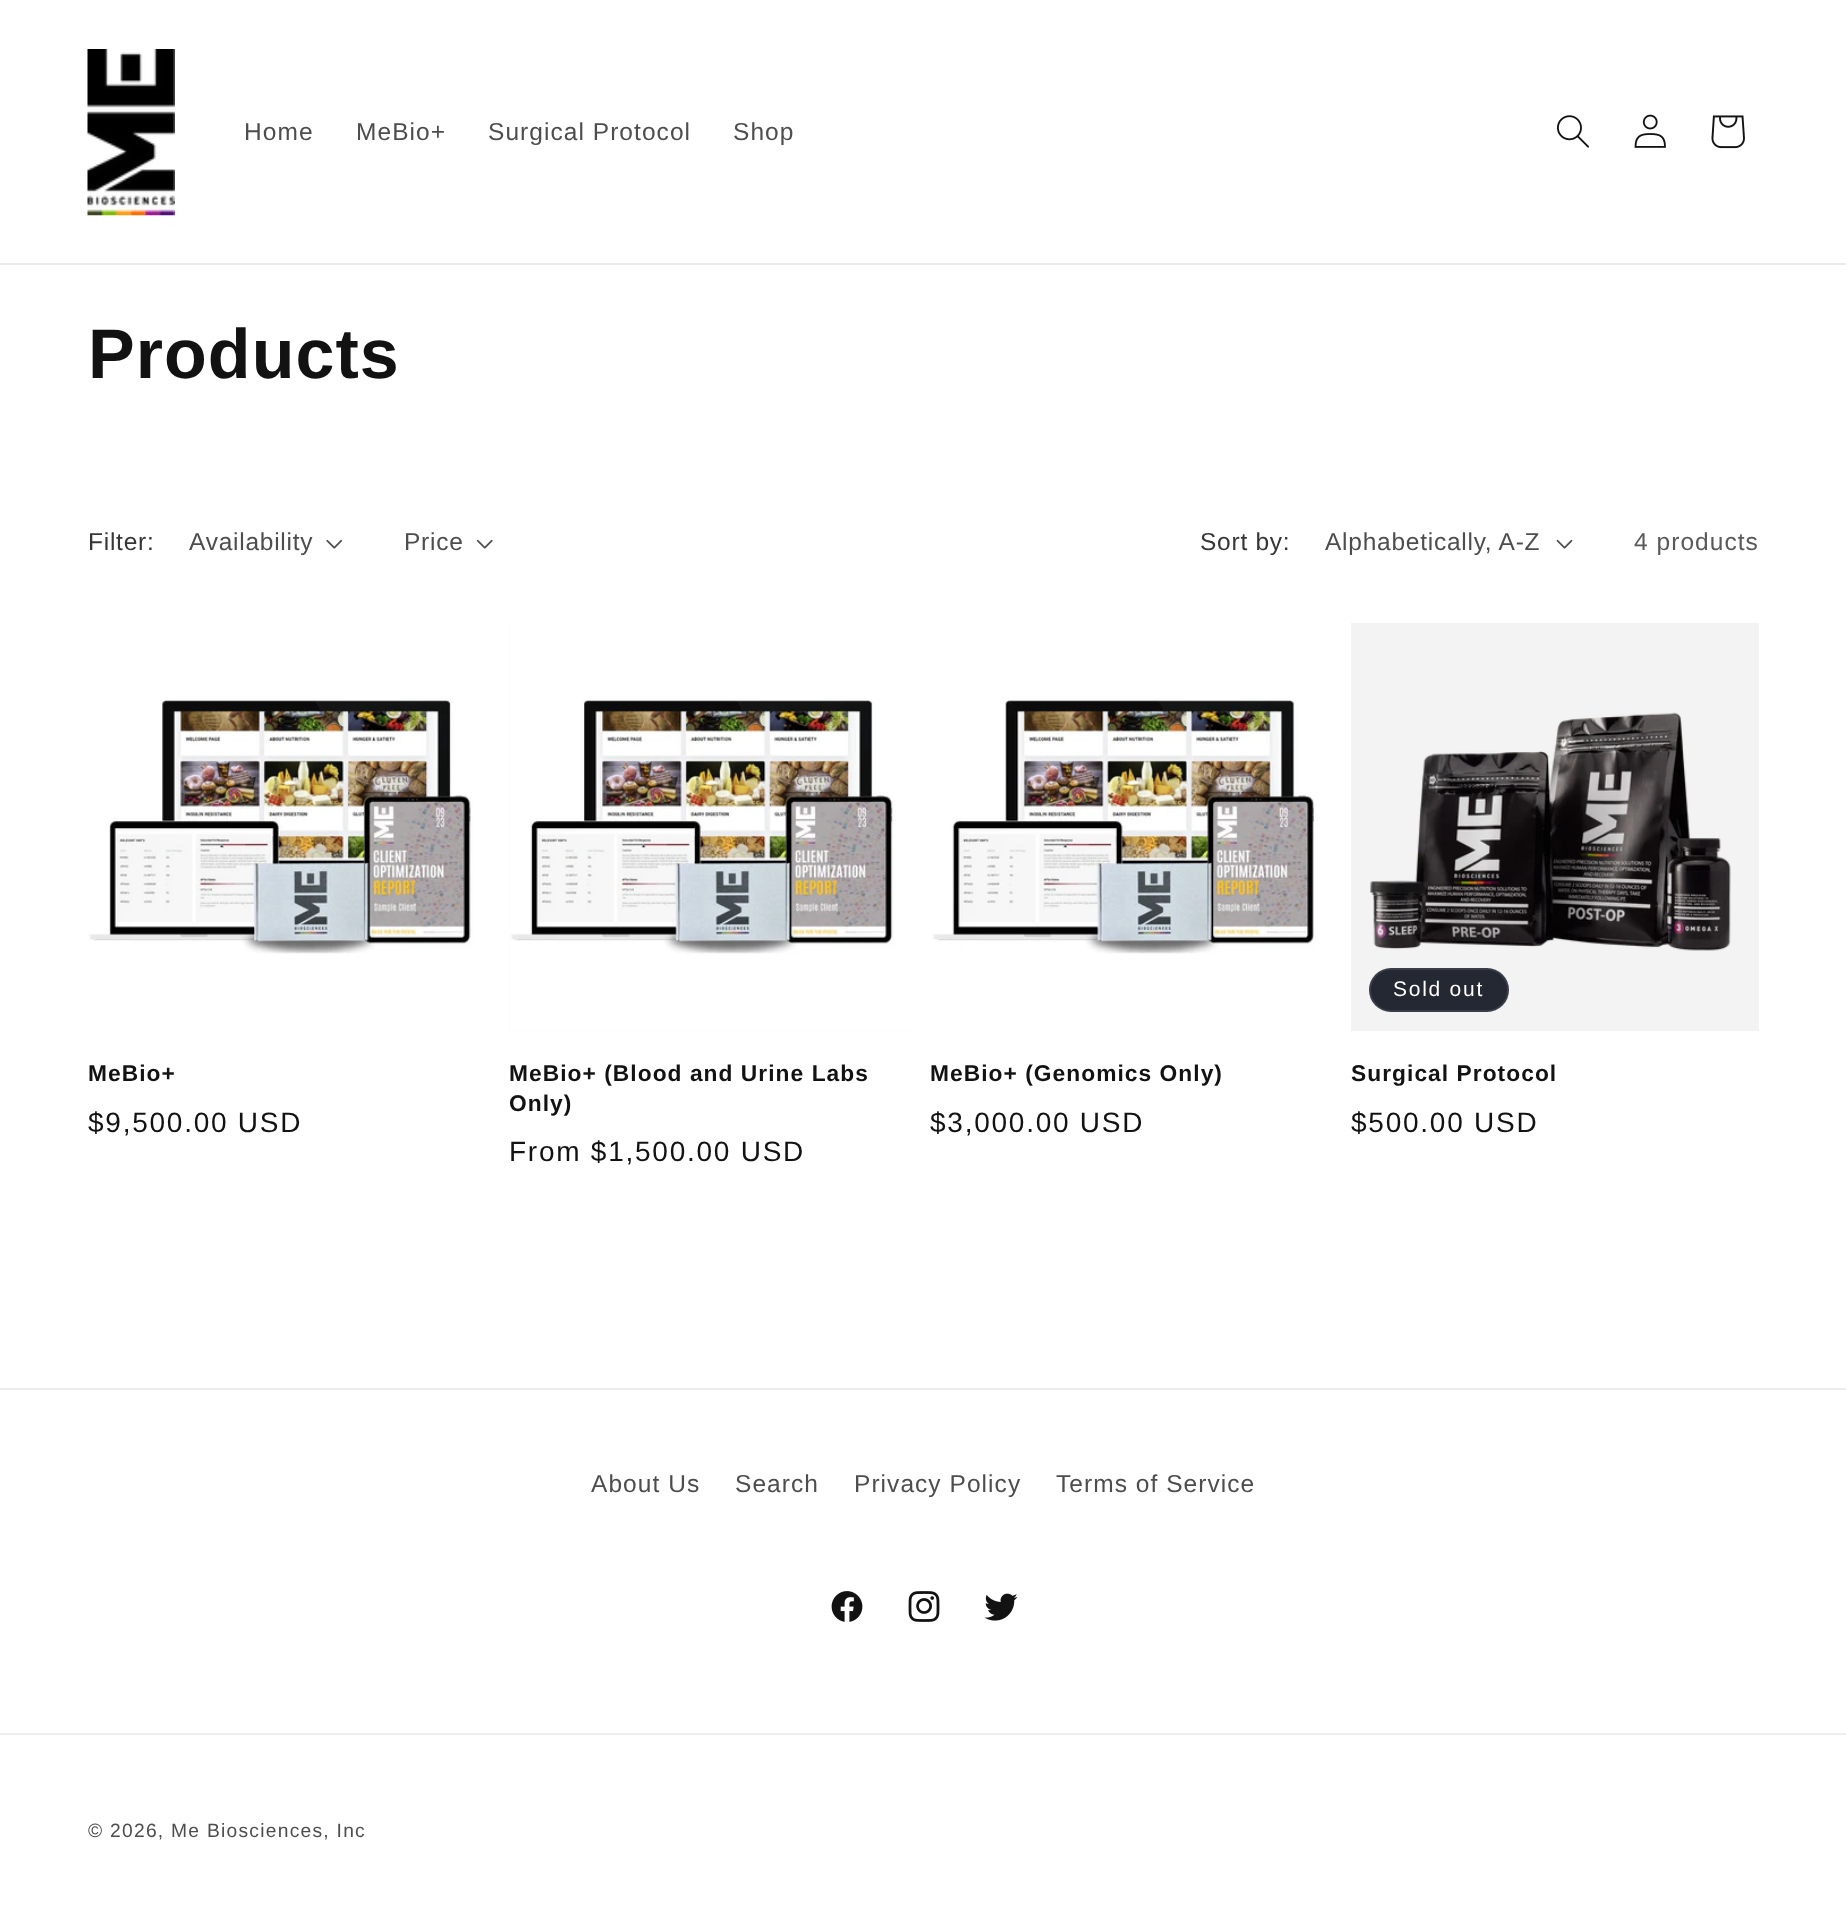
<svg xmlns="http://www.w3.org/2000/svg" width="1846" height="1910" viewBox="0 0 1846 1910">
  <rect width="100%" height="100%" fill="#fff"/>
  <path d="M0 263h1846v2H0z" fill="#ececec"/>
  <image x="87" y="49" width="88" height="167" href="img/1.png"/>
  <image x="1557" y="115" width="32" height="33" href="img/2.png"/>
  <image x="1634" y="114" width="32" height="34" href="img/3.png"/>
  <image x="1711" y="115" width="34" height="34" href="img/4.png"/>
  <image x="326" y="539" width="17" height="10" href="img/5.png"/>
  <image x="476" y="539" width="17" height="10" href="img/6.png"/>
  <image x="1556" y="539" width="17" height="10" href="img/7.png"/>
  <image x="88" y="623" width="407" height="408" href="img/8.png"/>
  <path d="M509 623h408v408H509z" fill="#f3f3f3"/>
  <image x="509" y="623" width="408" height="408" href="img/9.png"/>
  <image x="931" y="623" width="406" height="408" href="img/10.png"/>
  <path d="M1351 623h408v408H1351z" fill="#f3f3f3"/>
  <image x="1370" y="712" width="361" height="239" href="img/11.png"/>
  <rect x="1369" y="968" width="140" height="44" rx="22" fill="#242833"/>
  <rect x="1370" y="969" width="138" height="42" rx="21" fill="none" stroke="#ffffff1a" stroke-width="2"/>
  <path d="M0 1388h1846v2H0z" fill="#ececec"/>
  <image x="831" y="1591" width="32" height="31" href="img/12.png"/>
  <image x="908" y="1591" width="32" height="31" href="img/13.png"/>
  <image x="984" y="1593" width="34" height="28" href="img/14.png"/>
  <path d="M0 1733h1846v2H0z" fill="#ececec"/>
  <g font-family="Liberation Sans" font-size="24.5" letter-spacing="1.05" fill="#4d4d4d">
    <text x="244" y="140">Home</text>
    <text x="356" y="140">MeBio+</text>
    <text x="488" y="140">Surgical Protocol</text>
    <text x="733" y="140">Shop</text>
  </g>
  <text x="88" y="378" font-family="Liberation Sans" font-size="70" font-weight="bold" letter-spacing="1.05" fill="#121212">Products</text>
  <text x="88" y="550" font-family="Liberation Sans" font-size="24.5" letter-spacing="0.75" fill="#363636">Filter:</text>
  <g font-family="Liberation Sans" font-size="24.5" letter-spacing="0.75" fill="#4d4d4d">
    <text x="189" y="550">Availability</text>
    <text x="404" y="550">Price</text>
  </g>
  <text x="1200" y="550" font-family="Liberation Sans" font-size="24.5" letter-spacing="0.75" fill="#363636">Sort by:</text>
  <text x="1325" y="550" font-family="Liberation Sans" font-size="24.5" letter-spacing="0.75" fill="#4d4d4d">Alphabetically, A-Z</text>
  <text x="1634" y="550" font-family="Liberation Sans" font-size="24.5" letter-spacing="1.05" fill="#595959">4 products</text>
  <text x="88" y="1081" font-family="Liberation Sans" font-size="22.75" font-weight="bold" letter-spacing="1.05" fill="#121212">MeBio+</text>
  <text x="88" y="1132" font-family="Liberation Sans" font-size="28" letter-spacing="1.75" fill="#121212">$9,500.00 USD</text>
  <g font-family="Liberation Sans" font-size="22.75" font-weight="bold" letter-spacing="1.05" fill="#121212">
    <text x="509" y="1081">MeBio+ (Blood and Urine Labs</text>
    <text x="509" y="1111">Only)</text>
  </g>
  <text x="509" y="1161" font-family="Liberation Sans" font-size="28" letter-spacing="1.75" fill="#121212">From $1,500.00 USD</text>
  <text x="930" y="1081" font-family="Liberation Sans" font-size="22.75" font-weight="bold" letter-spacing="1.05" fill="#121212">MeBio+ (Genomics Only)</text>
  <text x="930" y="1132" font-family="Liberation Sans" font-size="28" letter-spacing="1.75" fill="#121212">$3,000.00 USD</text>
  <text x="1393" y="996" font-family="Liberation Sans" font-size="21" letter-spacing="1.75" fill="#fff">Sold out</text>
  <text x="1351" y="1081" font-family="Liberation Sans" font-size="22.75" font-weight="bold" letter-spacing="1.05" fill="#121212">Surgical Protocol</text>
  <text x="1351" y="1132" font-family="Liberation Sans" font-size="28" letter-spacing="1.75" fill="#121212">$500.00 USD</text>
  <g font-family="Liberation Sans" font-size="24.5" letter-spacing="1.05" fill="#4d4d4d">
    <text x="591" y="1492">About Us</text>
    <text x="735" y="1492">Search</text>
    <text x="854" y="1492">Privacy Policy</text>
    <text x="1056" y="1492">Terms of Service</text>
  </g>
  <text x="88" y="1837" font-family="Liberation Sans" font-size="19.25" letter-spacing="1.25" fill="#4d4d4d">© 2026, Me Biosciences, Inc</text>
</svg>
